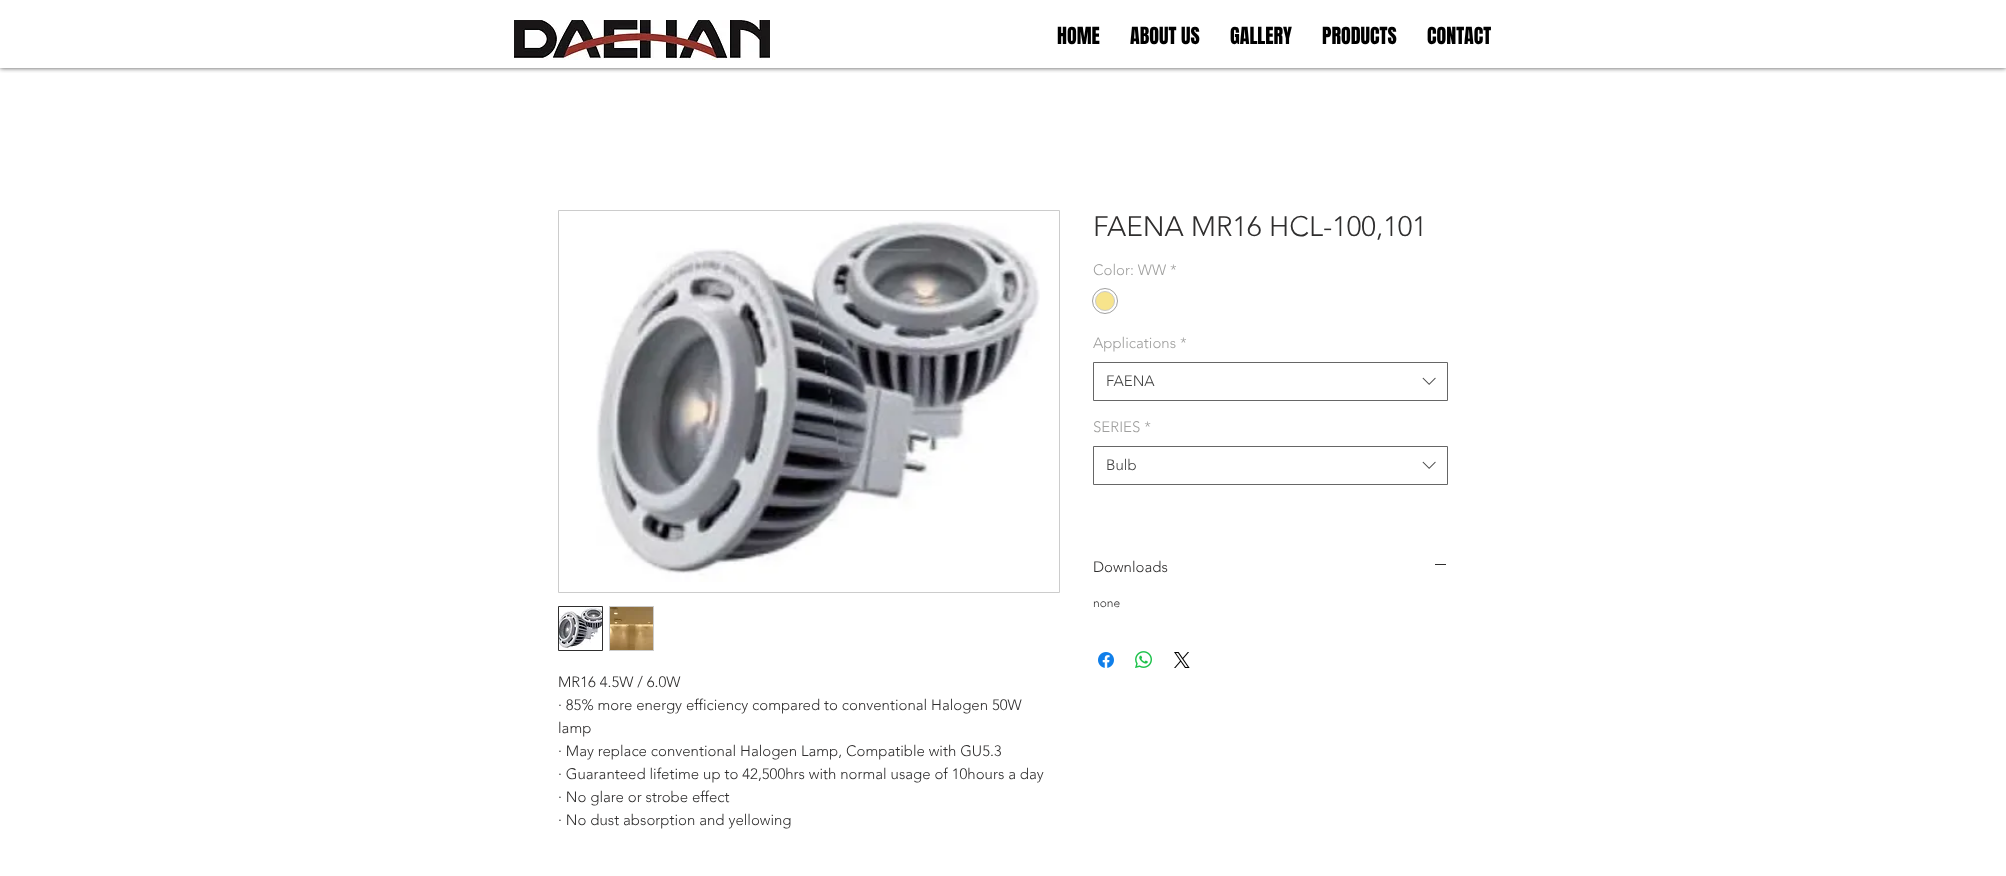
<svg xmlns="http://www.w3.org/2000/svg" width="2006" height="876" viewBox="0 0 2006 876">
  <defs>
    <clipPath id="clip1"><path d="M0 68h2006v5H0z"/></clipPath>
  </defs>
  <rect width="100%" height="100%" fill="#fff"/>
  <g clip-path="url(#clip1)">
    <path d="M0 0h2006v68H0z" fill="#000000b3" filter="blur(2.5px)"/>
  </g>
  <image x="514" y="20" width="256" height="40" href="img/1.png"/>
  <circle cx="1105" cy="301" r="12.5" fill="none" stroke="#a0a09f"/>
  <circle cx="1105" cy="301" r="9.5" fill="#f7e48c" stroke="#c9c9c9"/>
  <path d="M1093.5 362.5h354v38H1093.5z" fill="none" stroke="#666"/>
  <image x="1422" y="377" width="14" height="8" href="img/2.png"/>
  <path d="M1093.5 446.5h354v38H1093.5z" fill="none" stroke="#666"/>
  <image x="1422" y="461" width="14" height="8" href="img/2.png"/>
  <path d="M1435 564h11v1H1435z" fill="#2f2e2e"/>
  <image x="1098" y="652" width="16" height="16" href="img/3.png"/>
  <image x="1135" y="651" width="17" height="17" href="img/4.png"/>
  <image x="1174" y="652" width="16" height="16" href="img/5.png"/>
  <path d="M558.5 210.5h501v382H558.5z" fill="none" stroke="#ccc"/>
  <image x="596" y="220" width="444" height="362" href="img/6.png"/>
  <path d="M558.5 606.5h44v44H558.5z" fill="none" stroke="#2f2e2e"/>
  <image x="559" y="607" width="43" height="43" href="img/7.png"/>
  <path d="M609 606h45v45H609z" fill="#ccc"/>
  <image x="610" y="607" width="43" height="43" href="img/8.png"/>
  <g font-family="Anton" font-size="20" fill="#000">
    <text x="1057" y="44">HOME</text>
    <text x="1130" y="44">ABOUT US</text>
    <text x="1230" y="44">GALLERY</text>
    <text x="1322" y="44">PRODUCTS</text>
    <text x="1427" y="44">CONTACT</text>
  </g>
  <text x="1093" y="236" font-family="'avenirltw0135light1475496'" font-size="28" font-weight="300" fill="#2f2e2e">FAENA MR16 HCL-100,101</text>
  <g font-family="'avenirltw0135light1475496'" font-size="15" font-weight="300" fill="#a0a09f">
    <text x="1093" y="275">Color: WW *</text>
    <text x="1093" y="348">Applications *</text>
  </g>
  <text x="1106" y="386" font-family="'avenirltw0135light1475496'" font-size="15" font-weight="300" fill="#444">FAENA</text>
  <text x="1093" y="432" font-family="'avenirltw0135light1475496'" font-size="15" font-weight="300" fill="#a0a09f">SERIES *</text>
  <text x="1106" y="470" font-family="'avenirltw0135light1475496'" font-size="15" font-weight="300" fill="#444">Bulb</text>
  <text x="1093" y="572" font-family="'avenirltw0135light1475496'" font-size="15" font-weight="300" fill="#2f2e2e">Downloads</text>
  <text x="1093" y="607" font-family="'avenirltw0135light1475496'" font-size="12" font-weight="300" fill="#2f2e2e">none</text>
  <g font-family="'avenirltw0135light1475496'" font-size="15" font-weight="300" fill="#2f2e2e">
    <text x="558" y="687">MR16 4.5W / 6.0W</text>
    <text x="558" y="710">· 85% more energy efficiency compared to conventional Halogen 50W</text>
    <text x="558" y="733">lamp</text>
    <text x="558" y="756">· May replace conventional Halogen Lamp, Compatible with GU5.3</text>
    <text x="558" y="779">· Guaranteed lifetime up to 42,500hrs with normal usage of 10hours a day</text>
    <text x="558" y="802">· No glare or strobe effect</text>
    <text x="558" y="825">· No dust absorption and yellowing</text>
  </g>
</svg>
